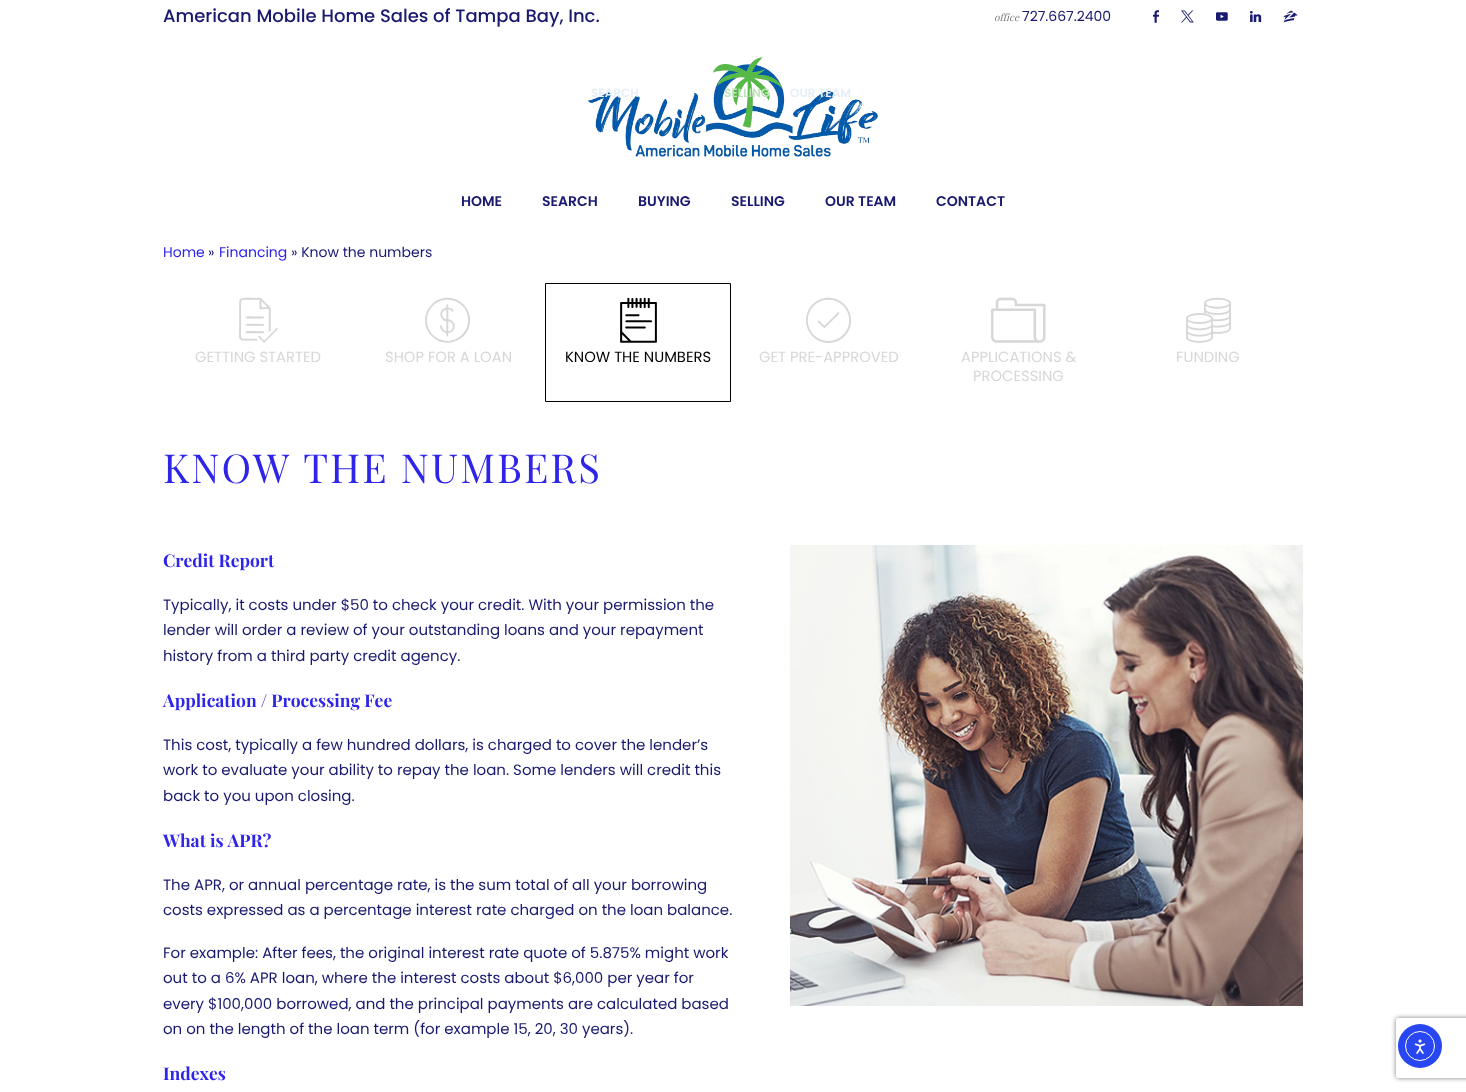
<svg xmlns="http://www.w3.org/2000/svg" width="1466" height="1092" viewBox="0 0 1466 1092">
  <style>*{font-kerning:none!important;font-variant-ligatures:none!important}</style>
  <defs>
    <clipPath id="clip1"><path d="M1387 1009H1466V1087H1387ZM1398 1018H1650C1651 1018 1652 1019 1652 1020V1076C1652 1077 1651 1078 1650 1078H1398C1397 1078 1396 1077 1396 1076V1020C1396 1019 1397 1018 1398 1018Z" clip-rule="evenodd"/></clipPath>
  </defs>
  <rect width="100%" height="100%" fill="#fff"/>
  <image x="588" y="57" width="290" height="100" href="img/1.png"/>
  <path d="M545.5 283.5h185v118H545.5z" fill="none" stroke="#000"/>
  <image x="790" y="545" width="513" height="461" href="img/2.png"/>
  <g clip-path="url(#clip1)">
    <rect x="1396" y="1018" width="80" height="60" rx="2" fill="#808080" filter="blur(2.5px)"/>
  </g>
  <circle cx="1420" cy="1046" r="22" fill="#2847f3"/>
  <circle cx="1420" cy="1046" r="14.5" fill="none" stroke="#fff"/>
  <image x="1414" y="1039" width="12" height="15" href="img/3.png"/>
  <text x="163" y="22" font-family="Poppins" font-size="18" font-weight="500" fill="#191970">American Mobile Home Sales of Tampa Bay, Inc.</text>
  <text x="994" y="21" font-family="Playfair Display" font-size="10" font-style="italic" fill="#7a7a7a">office</text>
  <text x="1022" y="21" font-family="Poppins" font-size="14" fill="#191970">727.667.2400</text>
  <g font-family="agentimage" font-size="15" fill="#191970">
    <text x="1153" y="23">򰄔</text>
    <text x="1181" y="23">򰄀</text>
    <text x="1216" y="23">򰂖</text>
    <text x="1250" y="23">򰄅</text>
    <text x="1283" y="23">򰂕</text>
  </g>
  <g font-family="Poppins" font-size="14" font-weight="600" fill="#191970">
    <text x="461" y="206">HOME</text>
    <text x="542" y="206">SEARCH</text>
    <text x="638" y="206">BUYING</text>
    <text x="731" y="206">SELLING</text>
    <text x="825" y="206">OUR TEAM</text>
    <text x="936" y="206">CONTACT</text>
  </g>
  <text x="591" y="97" font-family="Poppins" font-size="12" font-weight="600" fill="#e6eef6">SEARCH</text>
  <text x="724" y="97" font-family="Poppins" font-size="12" font-weight="600" fill="#c1e4bd">SELLING</text>
  <text x="790" y="97" font-family="Poppins" font-size="12" font-weight="600" fill="#e6eef6">OUR TEAM</text>
  <text x="163" y="257" font-family="Poppins" font-size="14" fill="#2e25e8">Home</text>
  <text x="208" y="257" font-family="Poppins" font-size="14" fill="#191970">»</text>
  <text x="219" y="257" font-family="Poppins" font-size="14" fill="#2e25e8">Financing</text>
  <text x="291" y="257" font-family="Poppins" font-size="14" fill="#191970">» Know the numbers</text>
  <text x="239" y="340" font-family="agentimage" font-size="45" fill="#d7d7d7">򰁉</text>
  <text x="195" y="362" font-family="Poppins" font-size="14.75" fill="#d7d7d7">GETTING STARTED</text>
  <text x="425" y="340" font-family="agentimage" font-size="45" fill="#d7d7d7">򰁐</text>
  <text x="385" y="362" font-family="Poppins" font-size="14.75" fill="#d7d7d7">SHOP FOR A LOAN</text>
  <text x="616" y="340" font-family="agentimage" font-size="45" fill="#000">򰅂</text>
  <text x="565" y="362" font-family="Poppins" font-size="14.75" fill="#000">KNOW THE NUMBERS</text>
  <text x="806" y="340" font-family="agentimage" font-size="45" fill="#d7d7d7">򰁈</text>
  <text x="759" y="362" font-family="Poppins" font-size="14.75" fill="#d7d7d7">GET PRE-APPROVED</text>
  <text x="991" y="340" font-family="agentimage" font-size="45" fill="#d7d7d7">򰀖</text>
  <g font-family="Poppins" font-size="14.75" fill="#d7d7d7">
    <text x="961" y="362">APPLICATIONS &amp;</text>
    <text x="973" y="381">PROCESSING</text>
  </g>
  <text x="1186" y="340" font-family="agentimage" font-size="45" fill="#d7d7d7">򰁑</text>
  <text x="1176" y="362" font-family="Poppins" font-size="14.75" fill="#d7d7d7">FUNDING</text>
  <text x="163" y="483" font-family="Playfair Display" font-size="40" letter-spacing="2" fill="#2e25e8">KNOW THE NUMBERS</text>
  <text x="163" y="567" font-family="Playfair Display" font-size="17.5" font-weight="bold" fill="#2e25e8">Credit Report</text>
  <g font-family="Poppins" font-size="15" fill="#191970">
    <text x="163" y="610">Typically, it costs under $50 to check your credit. With your permission the</text>
    <text x="163" y="635">lender will order a review of your outstanding loans and your repayment</text>
    <text x="163" y="661">history from a third party credit agency.</text>
  </g>
  <text x="163" y="707" font-family="Playfair Display" font-size="17.5" font-weight="bold" fill="#2e25e8">Application / Processing Fee</text>
  <g font-family="Poppins" font-size="15" fill="#191970">
    <text x="163" y="750">This cost, typically a few hundred dollars, is charged to cover the lender’s</text>
    <text x="163" y="775">work to evaluate your ability to repay the loan. Some lenders will credit this</text>
    <text x="163" y="801">back to you upon closing.</text>
  </g>
  <text x="163" y="847" font-family="Playfair Display" font-size="17.5" font-weight="bold" fill="#2e25e8">What is APR?</text>
  <g font-family="Poppins" font-size="15" fill="#191970">
    <text x="163" y="890">The APR, or annual percentage rate, is the sum total of all your borrowing</text>
    <text x="163" y="915">costs expressed as a percentage interest rate charged on the loan balance.</text>
    <text x="163" y="958">For example: After fees, the original interest rate quote of 5.875% might work</text>
    <text x="163" y="983">out to a 6% APR loan, where the interest costs about $6,000 per year for</text>
    <text x="163" y="1009">every $100,000 borrowed, and the principal payments are calculated based</text>
    <text x="163" y="1034">on on the length of the loan term (for example 15, 20, 30 years).</text>
  </g>
  <text x="163" y="1080" font-family="Playfair Display" font-size="17.5" font-weight="bold" fill="#2e25e8">Indexes</text>
</svg>
